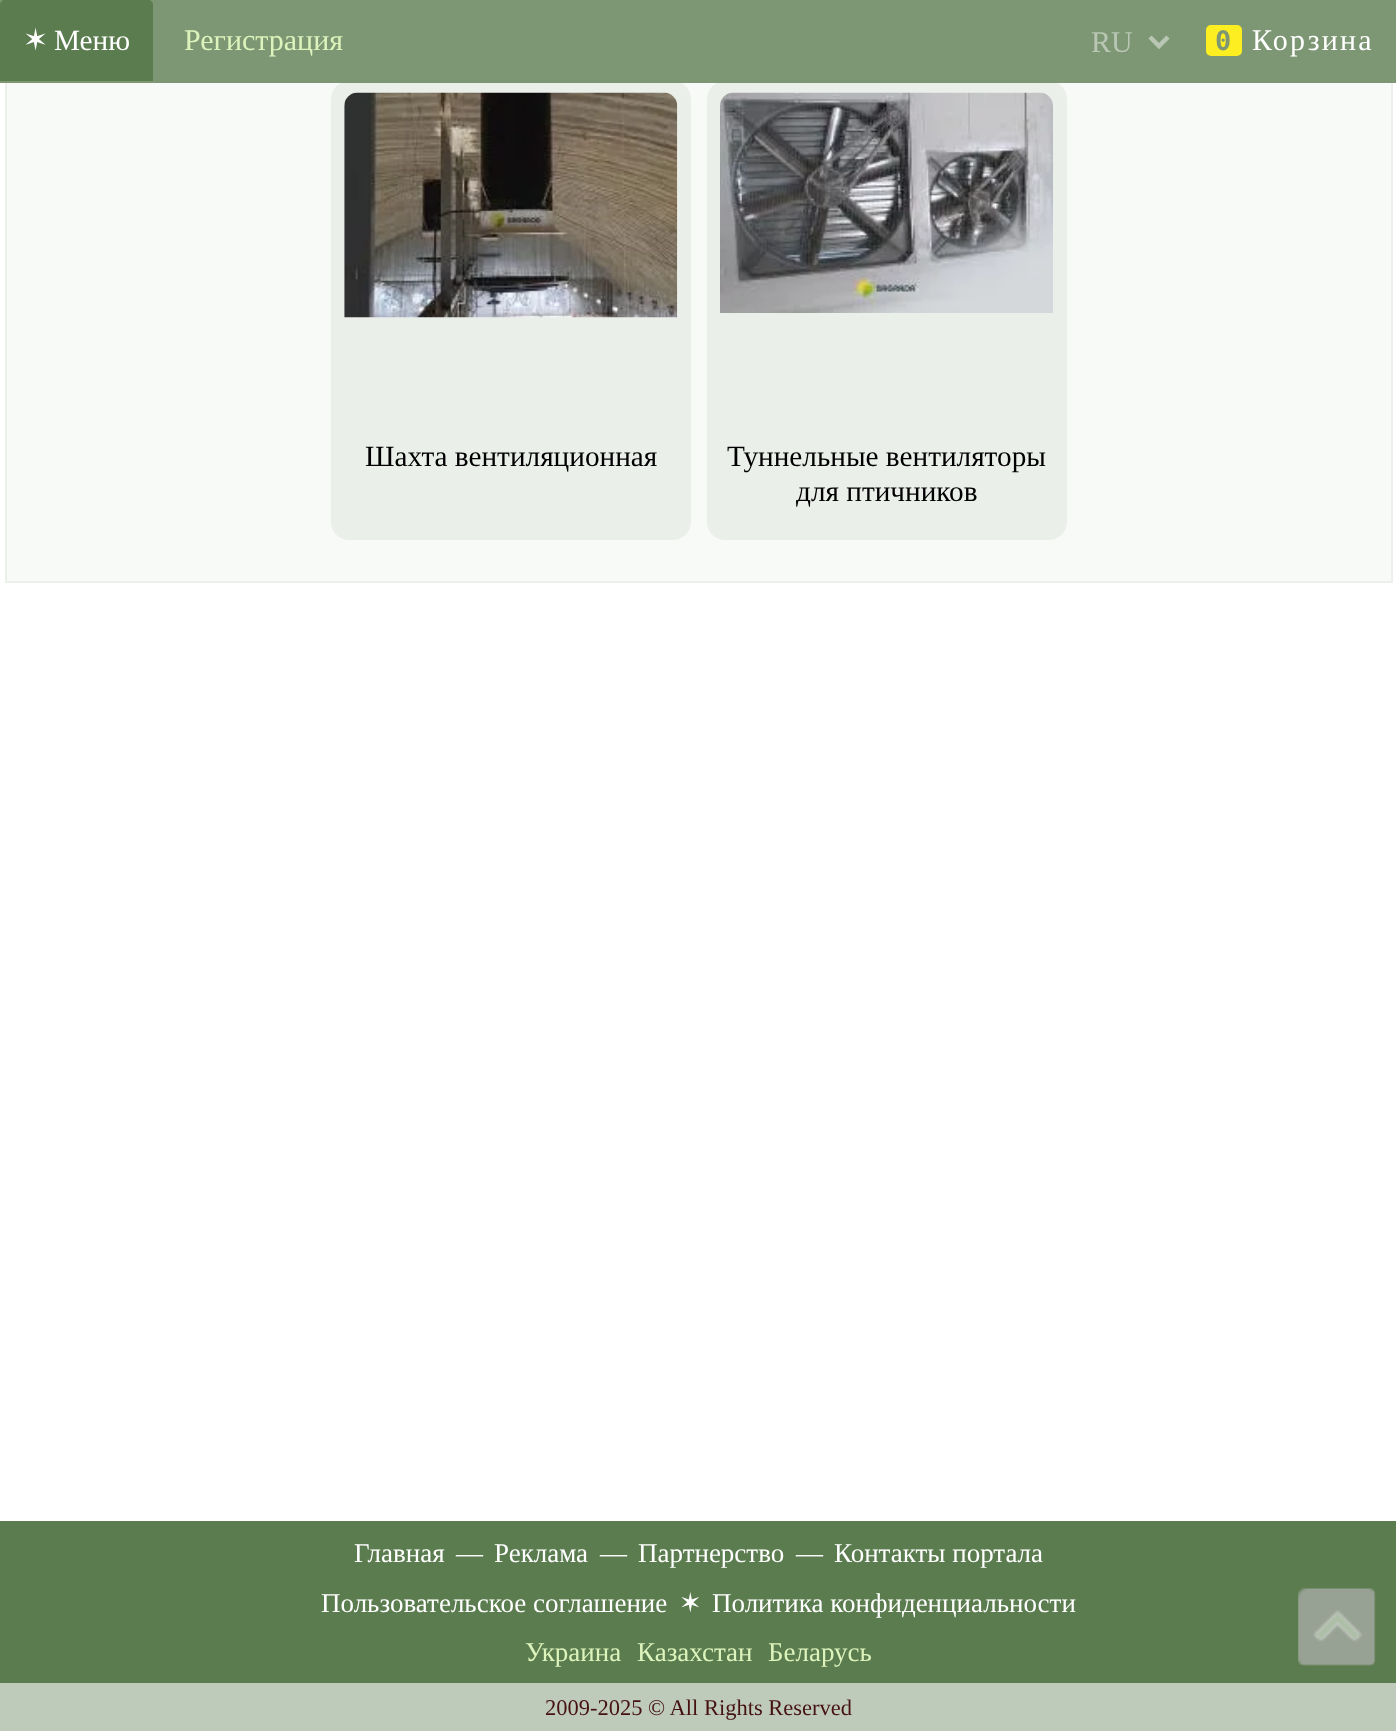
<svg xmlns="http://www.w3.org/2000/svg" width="1396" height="1731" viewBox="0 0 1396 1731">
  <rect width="100%" height="100%" fill="#fff"/>
  <path d="M7 83h1384v498H7z" fill="#f8faf8"/>
  <path d="M6 -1h1386v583H6z" fill="none" stroke="#ebf0ea" stroke-width="2"/>
  <rect x="331" y="81" width="360" height="459" rx="18" fill="#ebefea"/>
  <rect x="707" y="81" width="360" height="459" rx="18" fill="#ebefea"/>
  <path d="M0 0h1396v83H0z" fill="#7d9774"/>
  <path d="M5 0H148C151 0 153 2 153 5V81H0V5C0 2 2 0 5 0Z" fill="#5b7c4f"/>
  <path d="M1150 37L1159 46L1168 37" fill="none" stroke="#b8c6b3" stroke-width="4.5"/>
  <rect x="1206" y="25" width="36" height="31" rx="5" fill="#fdee21"/>
  <image x="344" y="92" width="334" height="226" href="img/1.png"/>
  <image x="720" y="92" width="333" height="221" href="img/2.png"/>
  <path d="M0 1521h1396v162H0z" fill="#5b7c4f"/>
  <path d="M0 1683h1396v48H0z" fill="#becbba"/>
  <image x="1298" y="1588" width="78" height="78" href="img/3.png"/>
  <text x="23" y="50" font-family="DejaVu Sans" font-size="30" fill="#fff">✶</text>
  <text x="54" y="50" font-family="Liberation Serif" font-size="29.25" fill="#fff">Меню</text>
  <text x="184" y="50" font-family="Liberation Serif" font-size="30" fill="#ddf3bc">Регистрация</text>
  <text x="1091" y="52" font-family="Liberation Serif" font-size="30" fill="#b8c6b3">RU</text>
  <text x="1215" y="50" font-family="DejaVu Sans Mono" font-size="27" font-weight="bold" letter-spacing="2.25" fill="#7d9774">0</text>
  <text x="1252" y="50" font-family="Liberation Serif" font-size="30" letter-spacing="2.25" fill="#fff">Корзина</text>
  <g font-family="Liberation Serif" font-size="29.25" fill="#000">
    <text x="365" y="466">Шахта вентиляционная</text>
    <text x="727" y="466">Туннельные вентиляторы</text>
    <text x="796" y="501">для птичников</text>
  </g>
  <g font-family="Liberation Serif" font-size="27" fill="#fff">
    <text x="354" y="1562">Главная</text>
    <text x="456" y="1562">—</text>
    <text x="494" y="1562">Реклама</text>
    <text x="600" y="1562">—</text>
    <text x="638" y="1562">Партнерство</text>
    <text x="796" y="1562">—</text>
    <text x="834" y="1562">Контакты портала</text>
    <text x="321" y="1612">Пользовательское соглашение</text>
  </g>
  <text x="679" y="1612" font-family="DejaVu Sans" font-size="27" fill="#fff">✶</text>
  <text x="712" y="1612" font-family="Liberation Serif" font-size="27" fill="#fff">Политика конфиденциальности</text>
  <g font-family="Liberation Serif" font-size="27" fill="#ddf3bc">
    <text x="525" y="1661">Украина</text>
    <text x="637" y="1661">Казахстан</text>
    <text x="768" y="1661">Беларусь</text>
  </g>
  <text x="545" y="1715" font-family="Liberation Serif" font-size="22.5" fill="#451111">2009-2025 © All Rights Reserved</text>
</svg>
